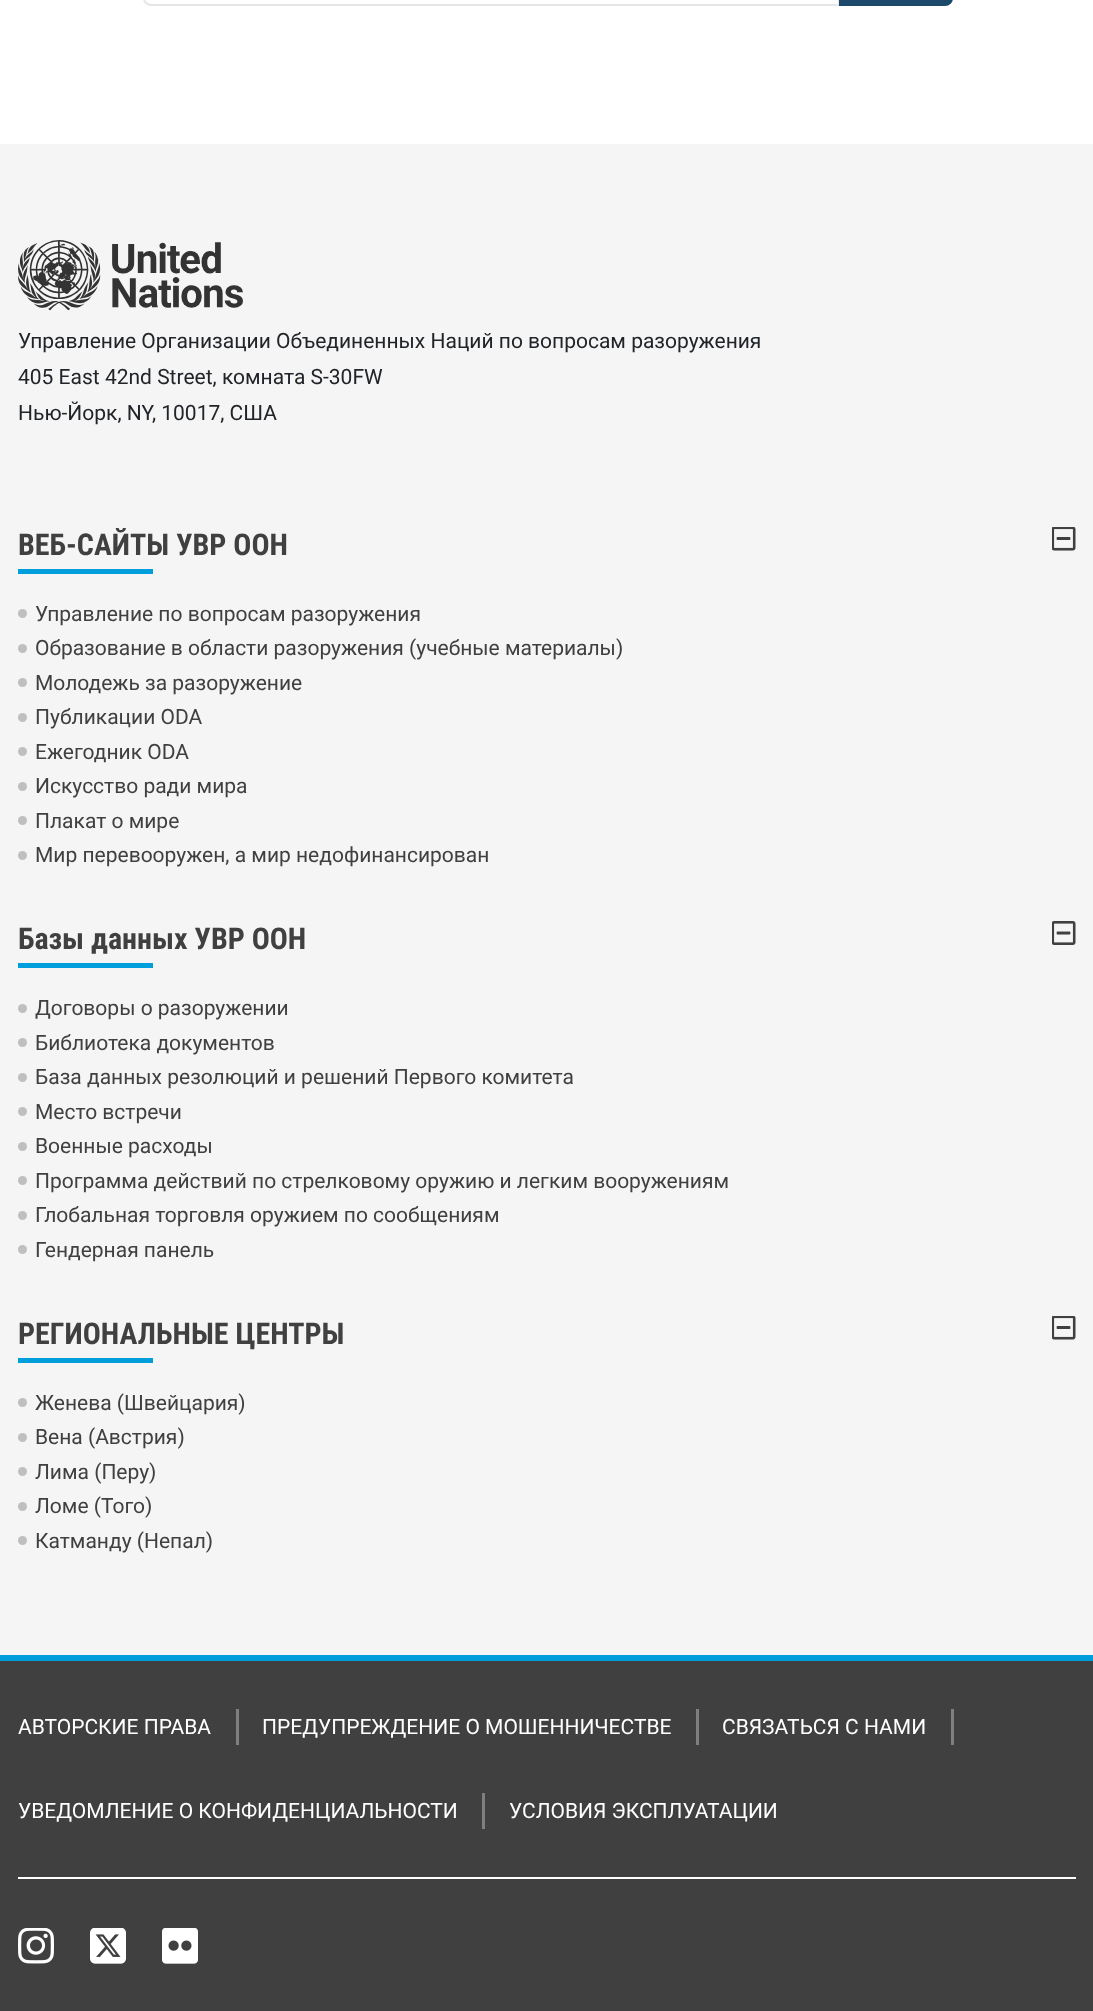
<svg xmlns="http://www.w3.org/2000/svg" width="1093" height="2011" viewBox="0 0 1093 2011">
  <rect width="100%" height="100%" fill="#fff"/>
  <path d="M151-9H839V5H151C147 5 144 2 144-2C144-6 147-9 151-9Z" fill="none" stroke="#e6e6e6" stroke-width="2"/>
  <path d="M840-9H945C949-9 952-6 952-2C952 2 949 5 945 5H840Z" fill="#1c4969" stroke="#1c4969" stroke-width="2"/>
  <path d="M0 144h1093v1511H0z" fill="#f5f5f5"/>
  <image x="18" y="240" width="225" height="71" href="img/1.png"/>
  <image x="1052" y="527" width="24" height="24" href="img/2.png"/>
  <path d="M18 569h135v5H18z" fill="#009edb"/>
  <circle cx="22.5" cy="613.5" r="4.5" fill="#bfbfbf"/>
  <circle cx="22.5" cy="648.5" r="4.5" fill="#bfbfbf"/>
  <circle cx="22.5" cy="682.5" r="4.5" fill="#bfbfbf"/>
  <circle cx="22.5" cy="717.5" r="4.5" fill="#bfbfbf"/>
  <circle cx="22.5" cy="751.5" r="4.5" fill="#bfbfbf"/>
  <circle cx="22.5" cy="786.5" r="4.5" fill="#bfbfbf"/>
  <circle cx="22.5" cy="820.5" r="4.5" fill="#bfbfbf"/>
  <circle cx="22.5" cy="855.5" r="4.5" fill="#bfbfbf"/>
  <image x="1052" y="921" width="24" height="24" href="img/3.png"/>
  <path d="M18 963h135v5H18z" fill="#009edb"/>
  <circle cx="22.5" cy="1008.5" r="4.5" fill="#bfbfbf"/>
  <circle cx="22.5" cy="1042.5" r="4.5" fill="#bfbfbf"/>
  <circle cx="22.5" cy="1077.5" r="4.5" fill="#bfbfbf"/>
  <circle cx="22.5" cy="1111.5" r="4.5" fill="#bfbfbf"/>
  <circle cx="22.5" cy="1146.5" r="4.5" fill="#bfbfbf"/>
  <circle cx="22.5" cy="1180.5" r="4.5" fill="#bfbfbf"/>
  <circle cx="22.5" cy="1215.5" r="4.5" fill="#bfbfbf"/>
  <circle cx="22.5" cy="1249.5" r="4.5" fill="#bfbfbf"/>
  <image x="1052" y="1316" width="24" height="24" href="img/2.png"/>
  <path d="M18 1358h135v5H18z" fill="#009edb"/>
  <circle cx="22.5" cy="1402.5" r="4.5" fill="#bfbfbf"/>
  <circle cx="22.5" cy="1437.5" r="4.5" fill="#bfbfbf"/>
  <circle cx="22.5" cy="1471.5" r="4.5" fill="#bfbfbf"/>
  <circle cx="22.5" cy="1506.5" r="4.5" fill="#bfbfbf"/>
  <circle cx="22.5" cy="1540.5" r="4.5" fill="#bfbfbf"/>
  <path d="M0 1661h1093v350H0z" fill="#404040"/>
  <path d="M0 1655h1093v6H0z" fill="#009edb"/>
  <path d="M18 1877h1058v2H18z" fill="#fff"/>
  <path d="M236 1709h3v36H236z" fill="#7f7f7f"/>
  <path d="M696 1709h3v36H696z" fill="#7f7f7f"/>
  <path d="M951 1709h3v36H951z" fill="#7f7f7f"/>
  <path d="M482 1793h3v36H482z" fill="#7f7f7f"/>
  <image x="18" y="1928" width="36" height="36" href="img/4.png"/>
  <image x="90" y="1928" width="36" height="36" href="img/5.png"/>
  <image x="162" y="1928" width="36" height="36" href="img/6.png"/>
  <g font-family="Roboto" font-size="21" fill="#212529">
    <text x="18" y="348">Управление Организации Объединенных Наций по вопросам разоружения</text>
    <text x="18" y="384">405 East 42nd Street, комната S-30FW</text>
    <text x="18" y="420">Нью-Йорк, NY, 10017, США</text>
  </g>
  <text x="18" y="555" font-family="Roboto Condensed" font-size="30" font-weight="bold" fill="#404040">ВЕБ-САЙТЫ УВР ООН</text>
  <g font-family="Roboto" font-size="21" fill="#404040">
    <text x="35" y="621">Управление по вопросам разоружения</text>
    <text x="35" y="655">Образование в области разоружения (учебные материалы)</text>
    <text x="35" y="690">Молодежь за разоружение</text>
    <text x="35" y="724">Публикации ODA</text>
    <text x="35" y="759">Ежегодник ODA</text>
    <text x="35" y="793">Искусство ради мира</text>
    <text x="35" y="828">Плакат о мире</text>
    <text x="35" y="862">Мир перевооружен, а мир недофинансирован</text>
  </g>
  <text x="18" y="949" font-family="Roboto Condensed" font-size="30" font-weight="bold" fill="#404040">Базы данных УВР ООН</text>
  <g font-family="Roboto" font-size="21" fill="#404040">
    <text x="35" y="1015">Договоры о разоружении</text>
    <text x="35" y="1050">Библиотека документов</text>
    <text x="35" y="1084">База данных резолюций и решений Первого комитета</text>
    <text x="35" y="1119">Место встречи</text>
    <text x="35" y="1153">Военные расходы</text>
    <text x="35" y="1188">Программа действий по стрелковому оружию и легким вооружениям</text>
    <text x="35" y="1222">Глобальная торговля оружием по сообщениям</text>
    <text x="35" y="1257">Гендерная панель</text>
  </g>
  <text x="18" y="1344" font-family="Roboto Condensed" font-size="30" font-weight="bold" fill="#404040">РЕГИОНАЛЬНЫЕ ЦЕНТРЫ</text>
  <g font-family="Roboto" font-size="21" fill="#404040">
    <text x="35" y="1410">Женева (Швейцария)</text>
    <text x="35" y="1444">Вена (Австрия)</text>
    <text x="35" y="1479">Лима (Перу)</text>
    <text x="35" y="1513">Ломе (Того)</text>
    <text x="35" y="1548">Катманду (Непал)</text>
  </g>
  <g font-family="Roboto" font-size="21" fill="#fff">
    <text x="18" y="1734">АВТОРСКИЕ ПРАВА</text>
    <text x="262" y="1734">ПРЕДУПРЕЖДЕНИЕ О МОШЕННИЧЕСТВЕ</text>
    <text x="722" y="1734">СВЯЗАТЬСЯ С НАМИ</text>
    <text x="18" y="1818">УВЕДОМЛЕНИЕ О КОНФИДЕНЦИАЛЬНОСТИ</text>
    <text x="509" y="1818">УСЛОВИЯ ЭКСПЛУАТАЦИИ</text>
  </g>
</svg>
